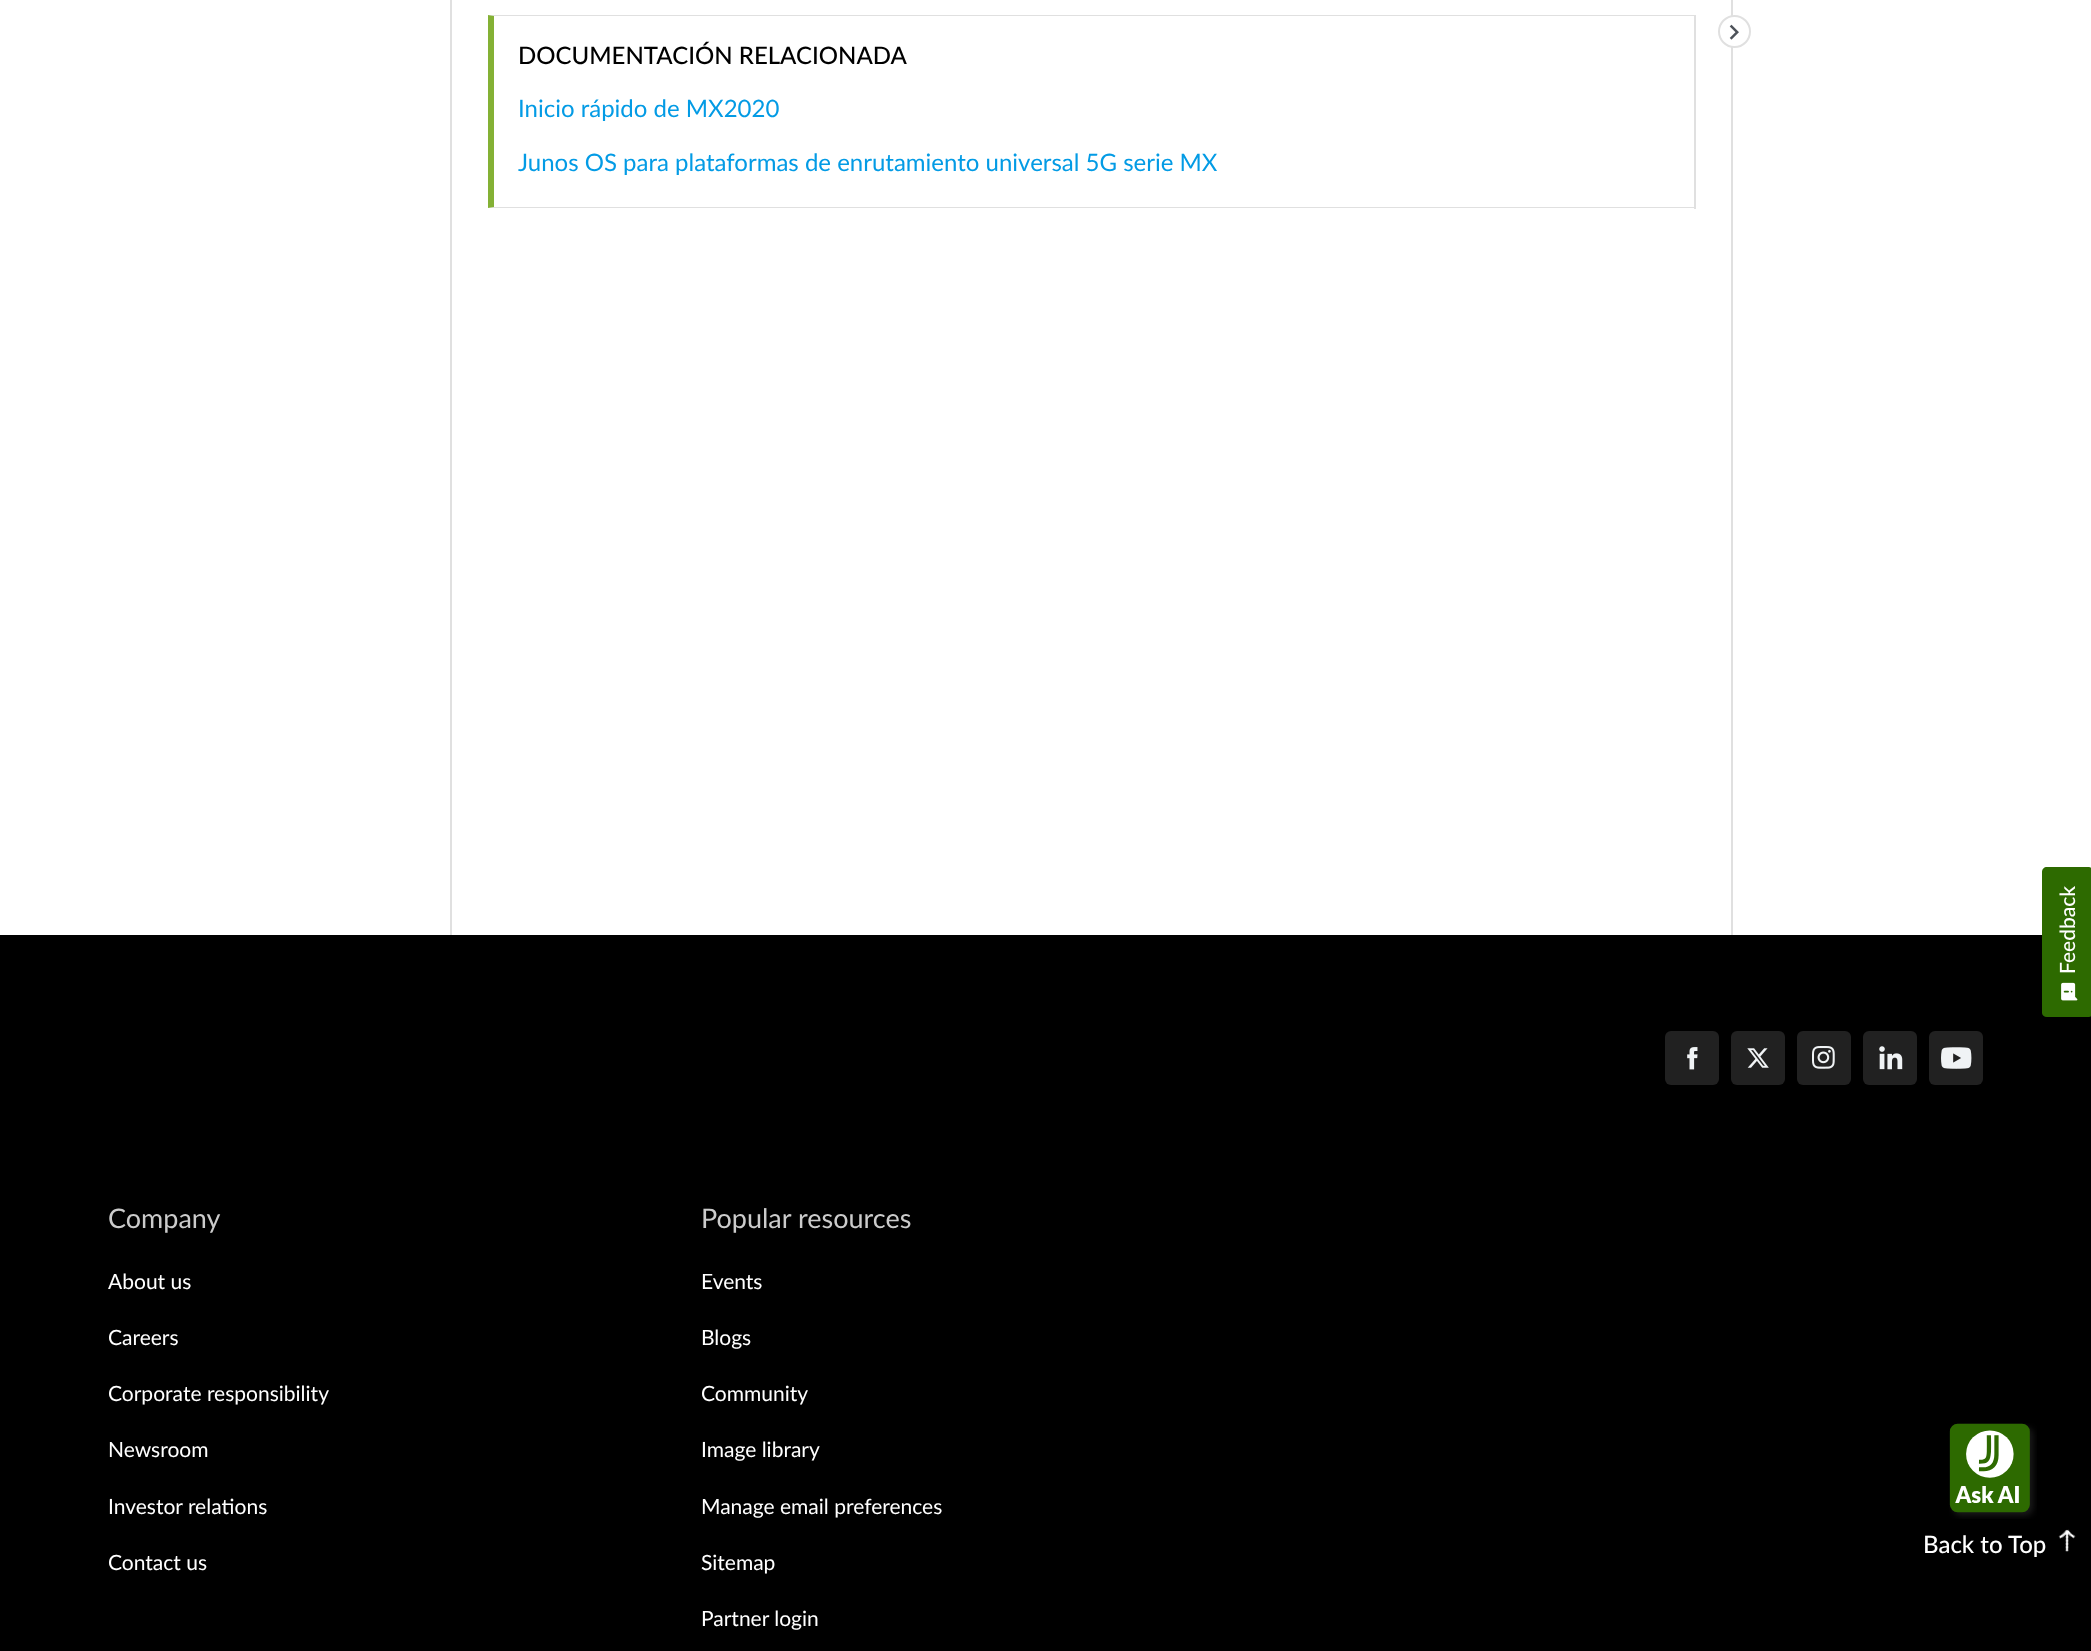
<svg xmlns="http://www.w3.org/2000/svg" width="2091" height="1651" viewBox="0 0 2091 1651">
  <rect width="100%" height="100%" fill="#fff"/>
  <path d="M450 0h2v935H450z" fill="#e0e0e0"/>
  <path d="M488 15H1695L1694 16H494Z" fill="#e0e0e0"/>
  <path d="M1694 15h2v194H1694z" fill="#e0e0e0"/>
  <path d="M1695 208H488L494 207H1694Z" fill="#e0e0e0"/>
  <path d="M488 208V15L494 16V207Z" fill="#84b135"/>
  <path d="M1731 0h2v935H1731z" fill="#e0e0e0"/>
  <circle cx="1734.5" cy="31.5" r="15.5" fill="#fff" stroke="#e0e0e0" stroke-width="2"/>
  <image x="1729" y="24" width="10" height="16" href="img/1.png"/>
  <path d="M0 935h2091v716H0z" fill="#000"/>
  <rect x="1665" y="1031" width="54" height="54" rx="6" fill="#212121"/>
  <image x="1687" y="1047" width="11" height="23" href="img/2.png"/>
  <rect x="1731" y="1031" width="54" height="54" rx="6" fill="#212121"/>
  <image x="1747" y="1048" width="22" height="20" href="img/3.png"/>
  <rect x="1797" y="1031" width="54" height="54" rx="6" fill="#212121"/>
  <image x="1812" y="1046" width="23" height="23" href="img/4.png"/>
  <rect x="1863" y="1031" width="54" height="54" rx="6" fill="#212121"/>
  <image x="1879" y="1046" width="24" height="24" href="img/5.png"/>
  <rect x="1929" y="1031" width="54" height="54" rx="6" fill="#212121"/>
  <image x="1941" y="1047" width="31" height="22" href="img/6.png"/>
  <image x="1949" y="1423" width="88" height="96" href="img/7.png"/>
  <image x="2058" y="1529" width="18" height="23" href="img/8.png"/>
  <path d="M2042 1013V872C2042 869 2044 867 2047 867H2089C2091 867 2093 869 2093 872V1013C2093 1015 2091 1017 2089 1017H2047C2044 1017 2042 1015 2042 1013Z" fill="#2d6a00"/>
  <image x="2061" y="982" width="17" height="19" href="img/9.png"/>
  <text x="518" y="64" font-family="Lato" font-size="24" font-weight="500" fill="#000">DOCUMENTACIÓN RELACIONADA</text>
  <g font-family="Lato" font-size="24" fill="#039be5">
    <text x="518" y="117">Inicio rápido de MX2020</text>
    <text x="518" y="171">Junos OS para plataformas de enrutamiento universal 5G serie MX</text>
  </g>
  <text x="108" y="1228" font-family="'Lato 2'" font-size="27" fill="#cbcbcb">Company</text>
  <g font-family="'Lato 2'" font-size="21" fill="#fff">
    <text x="108" y="1289">About us</text>
    <text x="108" y="1345">Careers</text>
    <text x="108" y="1401">Corporate responsibility</text>
    <text x="108" y="1457">Newsroom</text>
    <text x="108" y="1514">Investor relations</text>
    <text x="108" y="1570">Contact us</text>
  </g>
  <text x="701" y="1228" font-family="'Lato 2'" font-size="27" fill="#cbcbcb">Popular resources</text>
  <g font-family="'Lato 2'" font-size="21" fill="#fff">
    <text x="701" y="1289">Events</text>
    <text x="701" y="1345">Blogs</text>
    <text x="701" y="1401">Community</text>
    <text x="701" y="1457">Image library</text>
    <text x="701" y="1514">Manage email preferences</text>
    <text x="701" y="1570">Sitemap</text>
    <text x="701" y="1626">Partner login</text>
  </g>
  <text x="1923" y="1553" font-family="Lato" font-size="24" font-weight="500" fill="#fff">Back to Top</text>
  <text x="2075" y="974" transform="rotate(-90 2075 974)" font-family="Lato" font-size="21" font-weight="500" fill="#fff">Feedback</text>
</svg>
